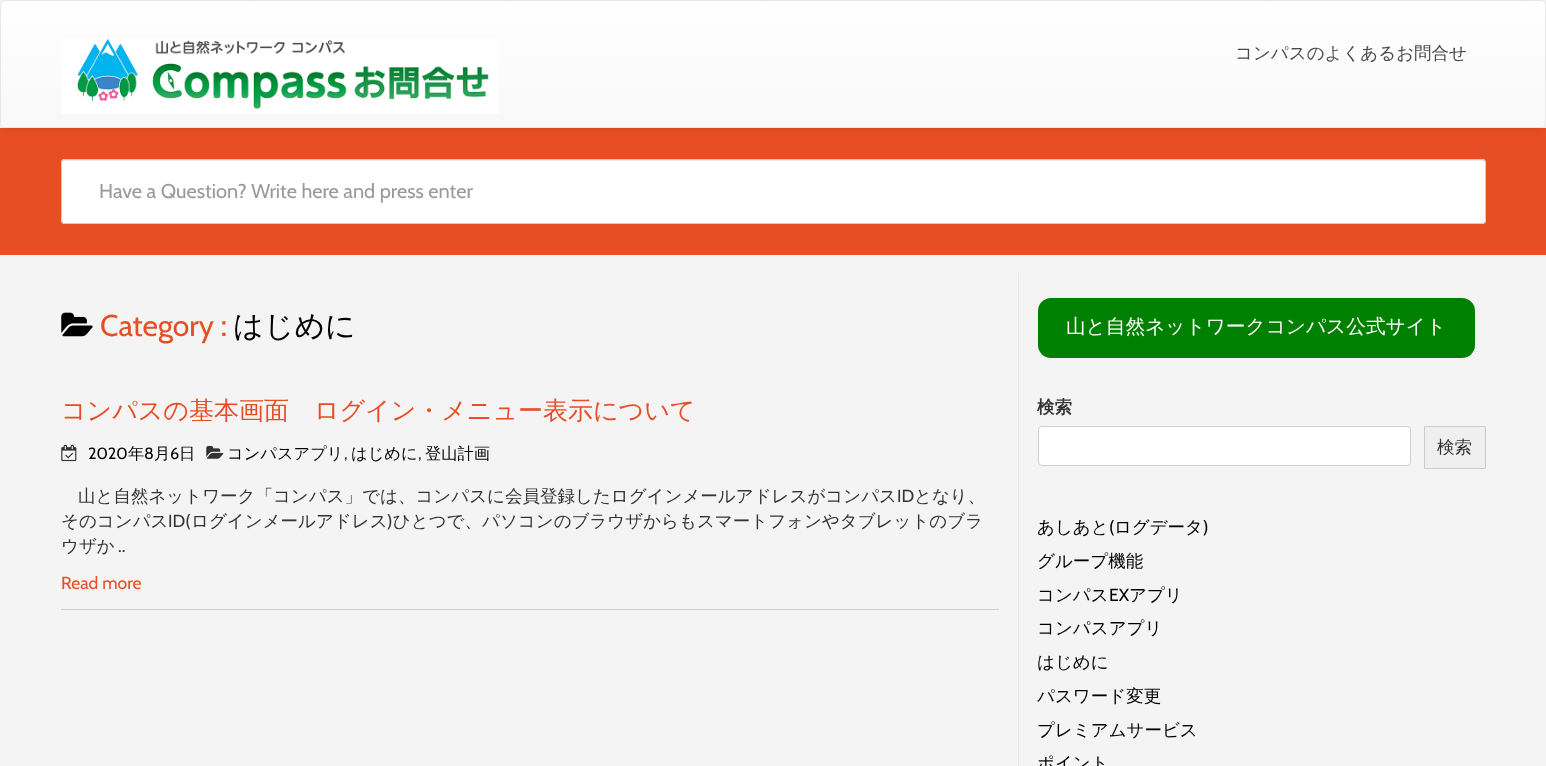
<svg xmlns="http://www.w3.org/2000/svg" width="1546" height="766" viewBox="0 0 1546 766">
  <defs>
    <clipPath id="clip1"><rect width="1546" height="128" rx="5"/></clipPath>
    <linearGradient id="g1" gradientUnits="userSpaceOnUse" x1="773" y1="1.2" x2="773" y2="126"><stop offset="0" stop-color="#fff"/><stop offset="1" stop-color="#f8f8f8"/></linearGradient>
  </defs>
  <rect width="100%" height="100%" fill="#f4f4f4"/>
  <path d="M0 128h1546v127H0z" fill="#e74e24"/>
  <rect y="1" width="1546" height="128" rx="5" fill="#00000012" filter="blur(3px)"/>
  <rect width="1546" height="128" rx="5" fill="#f8f8f8"/>
  <g clip-path="url(#clip1)">
    <path d="M0 1h1546v125H0z" fill="url(#g1)"/>
  </g>
  <rect x="0.5" y="0.5" width="1545" height="127" rx="4.5" fill="none" stroke="#e7e7e7"/>
  <image x="61" y="39" width="438" height="75" href="img/1.png"/>
  <rect x="61" y="159" width="1425" height="65" rx="4" fill="#fff"/>
  <path d="M65 161H1482C1484 161 1485 162 1485 164V162C1485 161 1484 160 1482 160H66C64 160 63 161 63 162Z" fill="#ececec"/>
  <rect x="61.5" y="159.5" width="1424" height="64" rx="3.5" fill="none" stroke="#ccc"/>
  <image x="61" y="312" width="32" height="25" href="img/2.png"/>
  <path d="M61 609h938v1H61z" fill="#ccc"/>
  <image x="61" y="444" width="16" height="18" href="img/3.png"/>
  <image x="206" y="446" width="18" height="13" href="img/4.png"/>
  <path d="M1018 273h1v493H1018z" fill="#e7e7e7"/>
  <rect x="1038" y="298" width="437" height="60" rx="13" fill="#008000"/>
  <rect x="1038.5" y="426.5" width="372" height="39" rx="3.5" fill="#fff" stroke="#cfcfcf"/>
  <path d="M1424.5 426.5h61v42H1424.5z" fill="#efefef" stroke="#ccc"/>
  <text x="1235" y="59" font-family="WenQuanYi Zen Hei" font-size="17.5" font-weight="500" fill="#494949">コンパスのよくあるお問合せ</text>
  <text x="99" y="198" font-family="Cabin" font-size="20" fill="#999">Have a Question? Write here and press enter</text>
  <text x="100" y="336" font-family="Cabin" font-size="30" fill="#e74e24">Category :</text>
  <text x="233" y="336" font-family="WenQuanYi Zen Hei" font-size="30" font-weight="500" fill="#000">はじめに</text>
  <text x="61" y="419" font-family="WenQuanYi Zen Hei" font-size="25" font-weight="500" fill="#e74e24">コンパスの基本画面　ログイン・メニュー表示について</text>
  <text x="88" y="459" font-family="Cabin" font-size="16.25" fill="#000">2020</text>
  <text x="128" y="459" font-family="WenQuanYi Zen Hei" font-size="16.25" font-weight="500" fill="#000">年</text>
  <text x="144" y="459" font-family="Cabin" font-size="16.25" fill="#000">8</text>
  <text x="154" y="459" font-family="WenQuanYi Zen Hei" font-size="16.25" font-weight="500" fill="#000">月</text>
  <text x="170" y="459" font-family="Cabin" font-size="16.25" fill="#000">6</text>
  <g font-family="WenQuanYi Zen Hei" font-size="16.25" font-weight="500" fill="#000">
    <text x="179" y="459">日</text>
    <text x="227" y="459">コンパスアプリ</text>
  </g>
  <text x="344" y="459" font-family="Cabin" font-size="16.25" fill="#333">,</text>
  <text x="351" y="459" font-family="WenQuanYi Zen Hei" font-size="16.25" font-weight="500" fill="#000">はじめに</text>
  <text x="418" y="459" font-family="Cabin" font-size="16.25" fill="#333">,</text>
  <text x="425" y="459" font-family="WenQuanYi Zen Hei" font-size="16.25" font-weight="500" fill="#000">登山計画</text>
  <text x="78" y="502" font-family="WenQuanYi Zen Hei" font-size="17.5" font-weight="500" fill="#333">山と自然ネットワーク「コンパス」では、コンパスに会員登録したログインメールアドレスがコンパス</text>
  <text x="897" y="502" font-family="Cabin" font-size="17.5" fill="#333">ID</text>
  <text x="914" y="502" font-family="WenQuanYi Zen Hei" font-size="17.5" font-weight="500" fill="#333">となり、</text>
  <text x="168" y="527" font-family="Cabin" font-size="17.5" fill="#333">ID(</text>
  <g font-family="WenQuanYi Zen Hei" font-size="17.5" font-weight="500" fill="#333">
    <text x="191" y="527">ログインメールアドレス ひとつで、パソコンのブラウザからもスマートフォンやタブレットのブラ</text>
    <text x="61" y="527">そのコンパス</text>
  </g>
  <text x="387" y="527" font-family="Cabin" font-size="17.5" fill="#333">)</text>
  <text x="61" y="552" font-family="WenQuanYi Zen Hei" font-size="17.5" font-weight="500" fill="#333">ウザか</text>
  <text x="118" y="552" font-family="Cabin" font-size="17.5" fill="#333">..</text>
  <text x="61" y="589" font-family="Cabin" font-size="17.5" fill="#e74e24">Read more</text>
  <text x="1066" y="333" font-family="WenQuanYi Zen Hei" font-size="19.7" font-weight="500" fill="#fff">山と自然ネットワークコンパス公式サイト</text>
  <text x="1037" y="413" font-family="WenQuanYi Zen Hei" font-size="17.5" font-weight="bold" fill="#333">検索</text>
  <text x="1437" y="453" font-family="WenQuanYi Zen Hei" font-size="17.5" font-weight="500" fill="#333">検索</text>
  <text x="1037" y="533" font-family="WenQuanYi Zen Hei" font-size="17.5" font-weight="500" fill="#000">あしあと ログデータ</text>
  <g font-family="Cabin" font-size="17.5" fill="#000">
    <text x="1109" y="533">(</text>
    <text x="1203" y="533">)</text>
  </g>
  <g font-family="WenQuanYi Zen Hei" font-size="17.5" font-weight="500" fill="#000">
    <text x="1037" y="567">グループ機能</text>
    <text x="1037" y="601">コンパス</text>
  </g>
  <text x="1109" y="601" font-family="Cabin" font-size="17.5" fill="#000">EX</text>
  <g font-family="WenQuanYi Zen Hei" font-size="17.5" font-weight="500" fill="#000">
    <text x="1129" y="601">アプリ</text>
    <text x="1037" y="634">コンパスアプリ</text>
    <text x="1037" y="668">はじめに</text>
    <text x="1037" y="702">パスワード変更</text>
    <text x="1037" y="736">プレミアムサービス</text>
    <text x="1037" y="769">ポイント</text>
  </g>
</svg>
